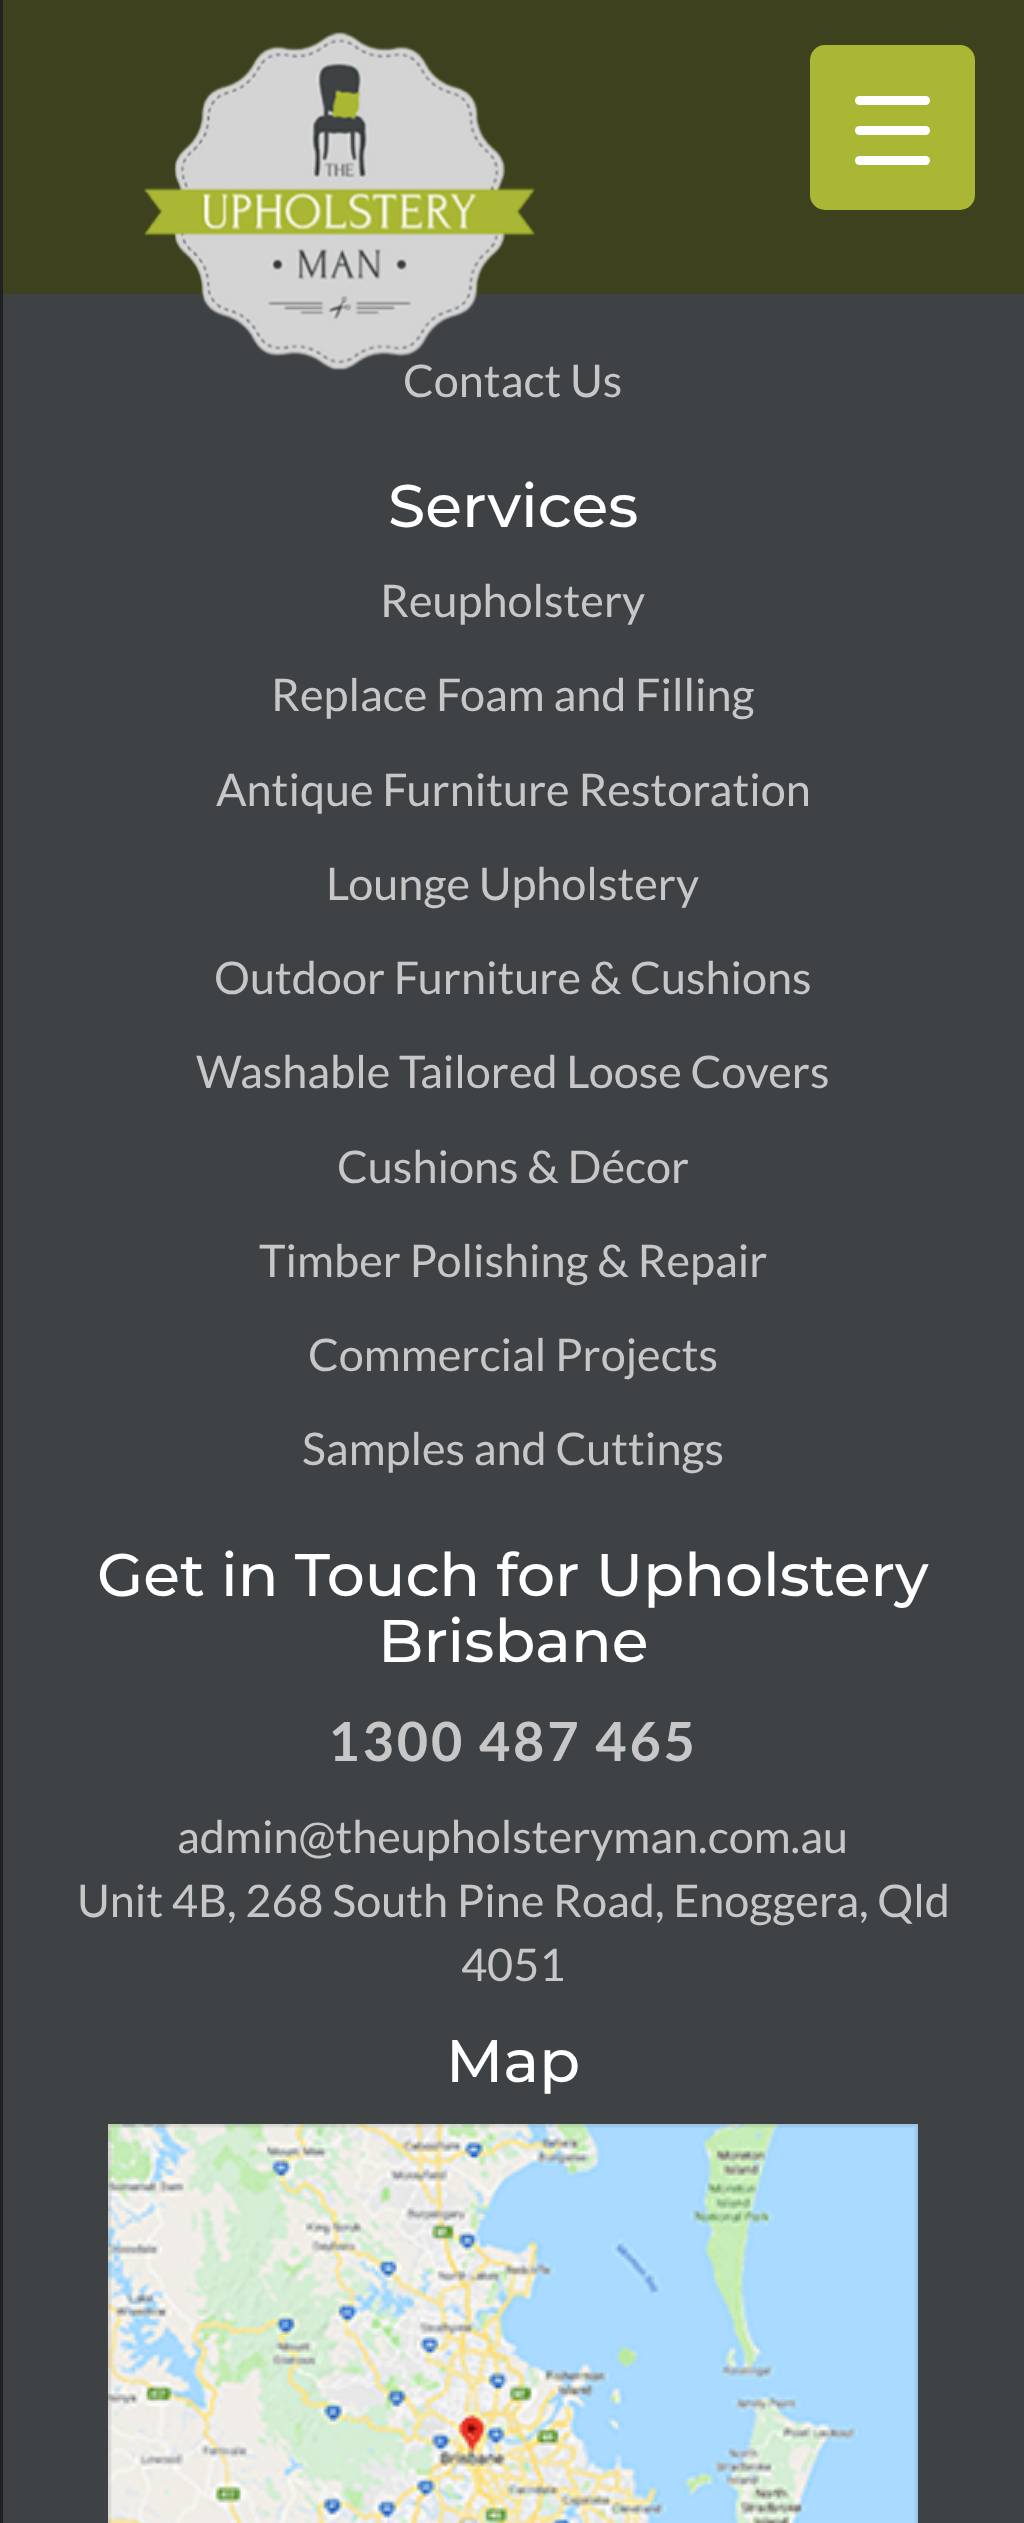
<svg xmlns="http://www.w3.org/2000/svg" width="1024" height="2523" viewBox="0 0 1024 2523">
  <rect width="100%" height="100%" fill="#3f4244"/>
  <path d="M0 0h3v2523H0z" fill="#212121"/>
  <path d="M3 0h1021v294H3z" fill="#3d411d"/>
  <rect x="810" y="45" width="165" height="165" rx="15" fill="#a9b734"/>
  <rect x="855" y="126" width="75" height="9" rx="4.5" fill="#fff"/>
  <rect x="855" y="96" width="75" height="9" rx="4.5" fill="#fff"/>
  <rect x="855" y="156" width="75" height="9" rx="4.5" fill="#fff"/>
  <image x="108" y="2124" width="810" height="399" href="img/2.png"/>
  <text x="403" y="397" font-family="Lato" font-size="45" fill="#c7c7c7">Contact Us</text>
  <image x="144" y="32" width="391" height="338" href="img/1.png"/>
  <text x="388" y="527" font-family="Montserrat" font-size="60" font-weight="500" fill="#fff">Services</text>
  <g font-family="Lato" font-size="45" fill="#c7c7c7">
    <text x="380" y="617">Reupholstery</text>
    <text x="271" y="711">Replace Foam and Filling</text>
    <text x="216" y="806">Antique Furniture Restoration</text>
    <text x="326" y="900">Lounge Upholstery</text>
    <text x="214" y="994">Outdoor Furniture &amp; Cushions</text>
    <text x="196" y="1088">Washable Tailored Loose Covers</text>
    <text x="337" y="1183">Cushions &amp; Décor</text>
    <text x="259" y="1277">Timber Polishing &amp; Repair</text>
    <text x="308" y="1371">Commercial Projects</text>
    <text x="302" y="1465">Samples and Cuttings</text>
  </g>
  <g font-family="Montserrat" font-size="60" font-weight="500" fill="#fff">
    <text x="97" y="1596">Get in Touch for Upholstery</text>
    <text x="378" y="1662">Brisbane</text>
  </g>
  <text x="328" y="1761" font-family="Lato" font-size="54" font-weight="bold" letter-spacing="3" fill="#c7c7c7">1300 487 465</text>
  <g font-family="Lato" font-size="45" fill="#c7c7c7">
    <text x="177" y="1853">admin@theupholsteryman.com.au</text>
    <text x="77" y="1917">Unit 4B, 268 South Pine Road, Enoggera, Qld</text>
    <text x="461" y="1981">4051</text>
  </g>
  <text x="446" y="2082" font-family="Montserrat" font-size="60" font-weight="500" fill="#fff">Map</text>
</svg>
